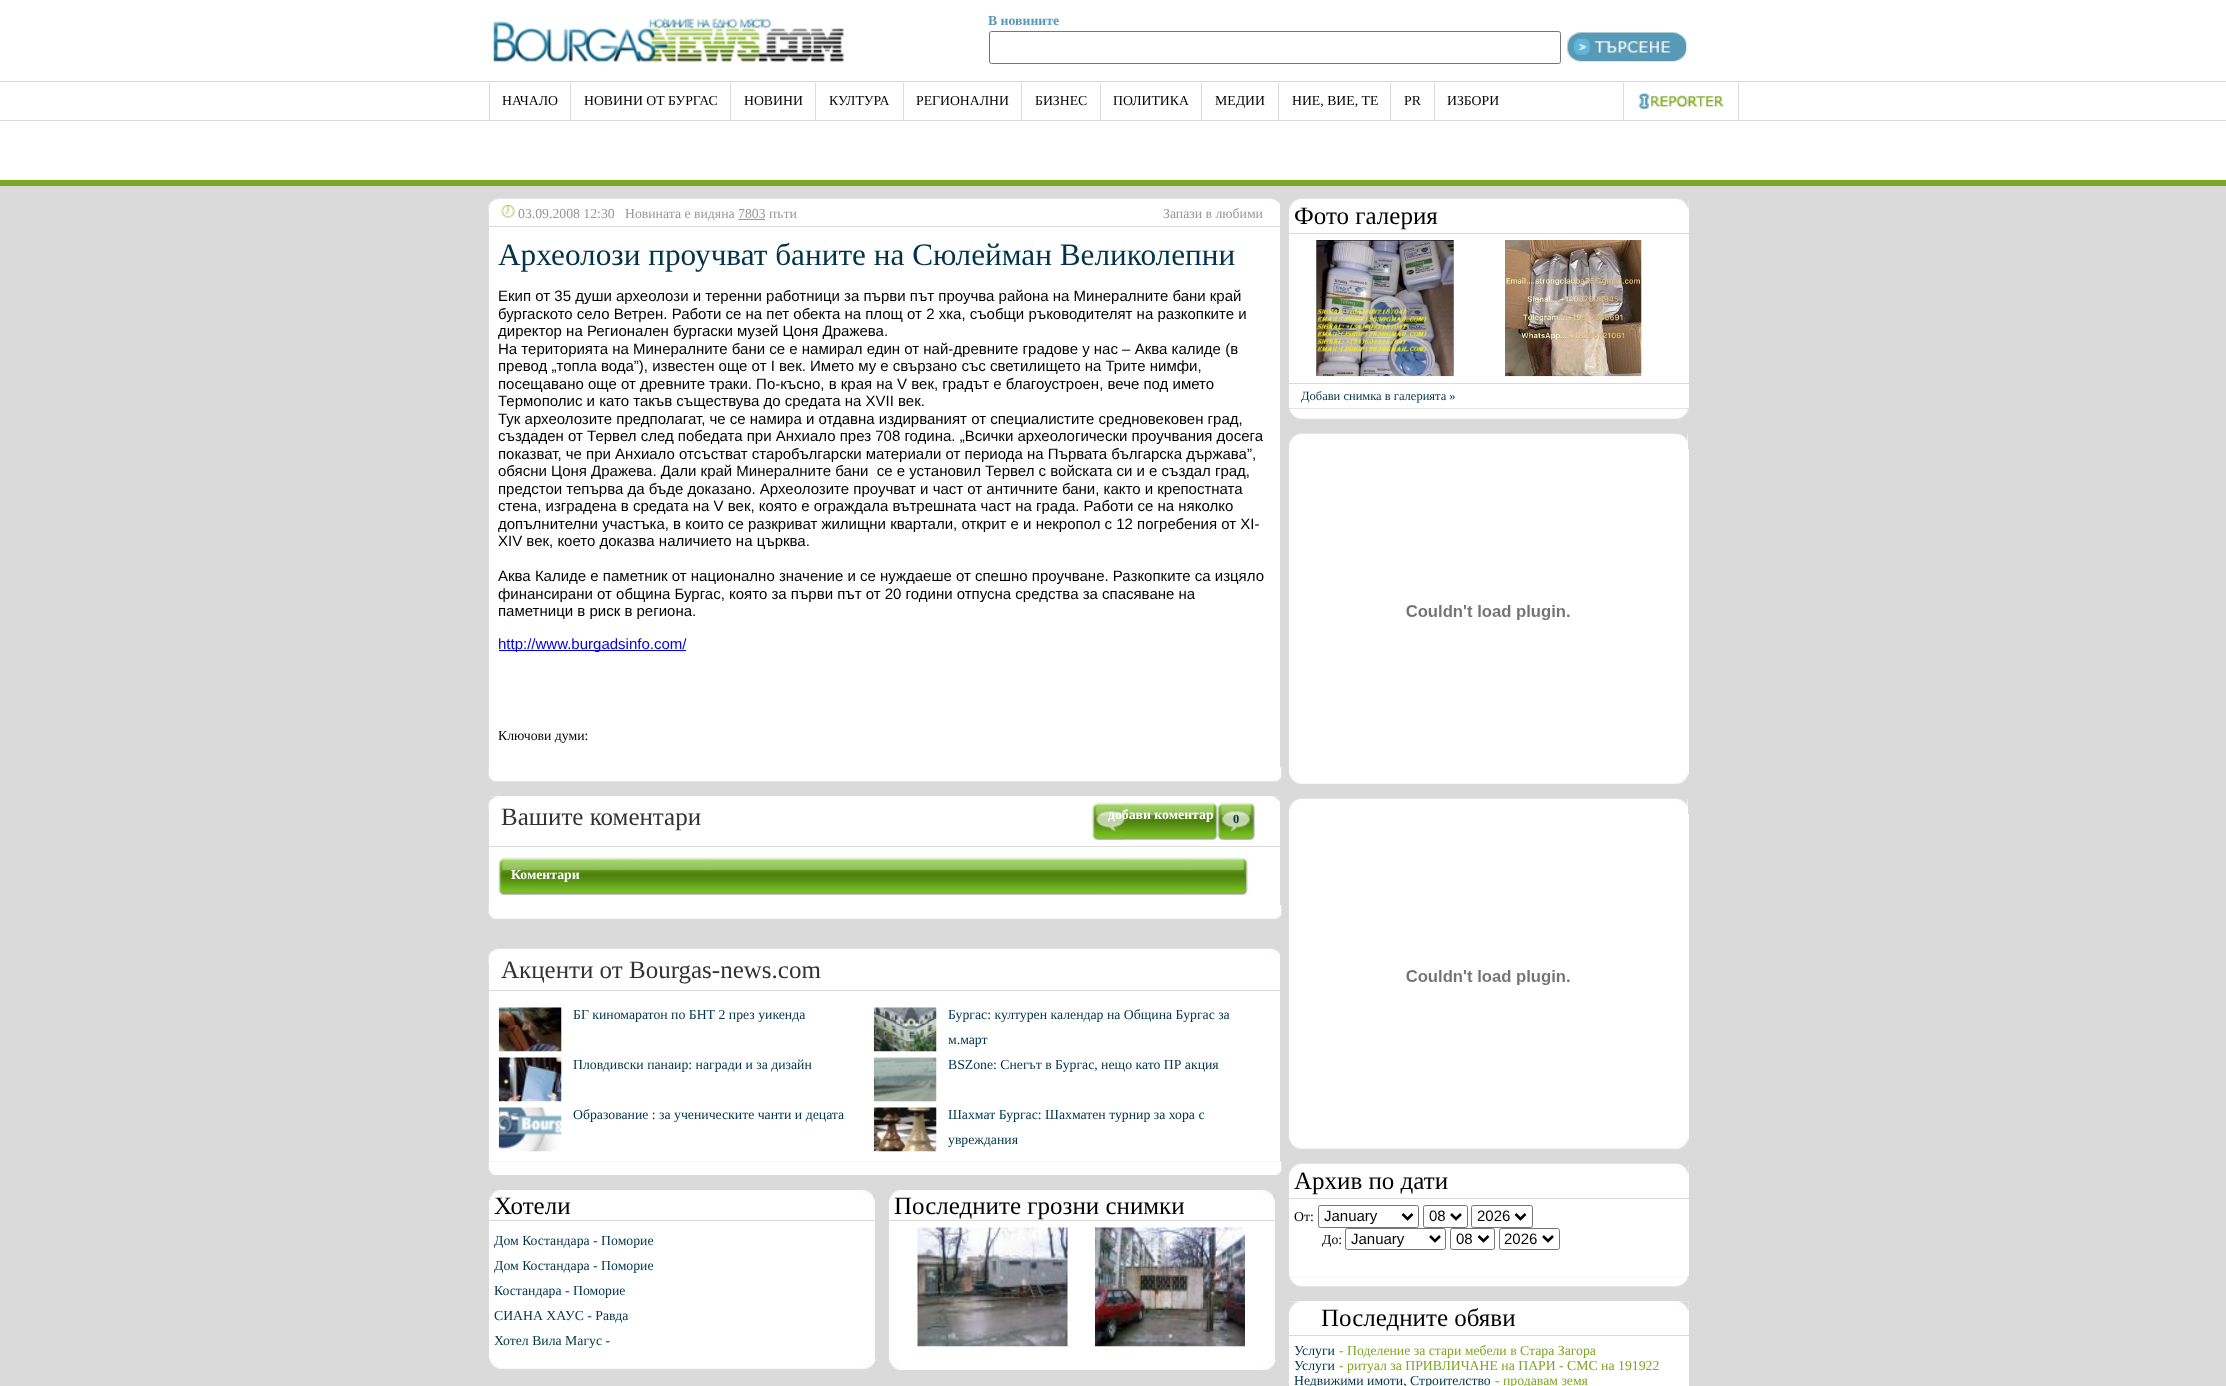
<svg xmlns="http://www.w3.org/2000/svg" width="2226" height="1386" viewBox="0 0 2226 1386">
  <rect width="100%" height="100%" fill="#dadada"/>
  <path d="M0 0h2226v180H0z" fill="#fff"/>
  <path d="M0 180h2226v6H0z" fill="#80a524"/>
  <image x="493" y="18" width="351" height="44" href="img/1.png"/>
  <rect x="989.5" y="31.5" width="571" height="32" rx="2" fill="none" stroke="#767676"/>
  <image x="1567" y="32" width="120" height="30" href="img/2.png"/>
  <path d="M0 81h2226v1H0z" fill="#dadada"/>
  <path d="M0 120h2226v1H0z" fill="#dadada"/>
  <path d="M489 83h1v37H489z" fill="#dadada"/>
  <path d="M570 83h1v37H570z" fill="#dadada"/>
  <path d="M730 83h1v37H730z" fill="#dadada"/>
  <path d="M815 83h1v37H815z" fill="#dadada"/>
  <path d="M903 83h1v37H903z" fill="#dadada"/>
  <path d="M1021 83h1v37H1021z" fill="#dadada"/>
  <path d="M1100 83h1v37H1100z" fill="#dadada"/>
  <path d="M1201 83h1v37H1201z" fill="#dadada"/>
  <path d="M1278 83h1v37H1278z" fill="#dadada"/>
  <path d="M1390 83h1v37H1390z" fill="#dadada"/>
  <path d="M1434 83h1v37H1434z" fill="#dadada"/>
  <path d="M1738 83h1v37H1738z" fill="#dadada"/>
  <path d="M1623 83h1v37H1623z" fill="#dadada"/>
  <image x="1638" y="93" width="86" height="16" href="img/3.png"/>
  <path d="M489 213h791v555H489z" fill="#fff"/>
  <image x="488" y="198" width="792" height="16" href="img/4.png"/>
  <path d="M489 226h791v1H489z" fill="#dadada"/>
  <image x="501" y="205" width="14" height="13" href="img/5.png"/>
  <path d="M738 219h27v1H738z" fill="#979797"/>
  <path d="M499 650h187v1H499z" fill="#00e"/>
  <image x="488" y="767" width="794" height="15" href="img/6.png"/>
  <path d="M489 796h791v109H489z" fill="#fff"/>
  <image x="488" y="796" width="792" height="15" href="img/7.png"/>
  <path d="M489 846h791v1H489z" fill="#dadada"/>
  <image x="1217" y="802" width="38" height="38" href="img/9.png"/>
  <image x="1092" y="802" width="126" height="38" href="img/8.png"/>
  <image x="498" y="857" width="751" height="38" href="img/10.png"/>
  <image x="488" y="905" width="794" height="14" href="img/11.png"/>
  <path d="M489 963h791v27H489z" fill="#fff"/>
  <image x="488" y="948" width="792" height="16" href="img/4.png"/>
  <path d="M489 991h791v170H489z" fill="#fff"/>
  <image x="498" y="1007" width="64" height="45" href="img/12.png"/>
  <image x="498" y="1057" width="64" height="45" href="img/13.png"/>
  <image x="498" y="1107" width="64" height="45" href="img/14.png"/>
  <image x="873" y="1007" width="64" height="45" href="img/15.png"/>
  <image x="873" y="1057" width="64" height="45" href="img/16.png"/>
  <image x="873" y="1107" width="64" height="45" href="img/17.png"/>
  <image x="488" y="1161" width="794" height="14" href="img/18.png"/>
  <path d="M489 1200h386v20H489z" fill="#fff"/>
  <image x="489" y="1190" width="386" height="10" href="img/19.png"/>
  <path d="M489 1221h386v138H489z" fill="#fff"/>
  <image x="489" y="1358" width="388" height="11" href="img/20.png"/>
  <path d="M889 1200h386v20H889z" fill="#fff"/>
  <image x="889" y="1190" width="386" height="10" href="img/21.png"/>
  <path d="M889 1221h386v139H889z" fill="#fff"/>
  <image x="917" y="1227" width="151" height="120" href="img/22.png"/>
  <image x="1095" y="1227" width="150" height="120" href="img/23.png"/>
  <image x="889" y="1360" width="388" height="10" href="img/24.png"/>
  <path d="M1289 199h400v34H1289z" fill="#fff"/>
  <image x="1289" y="198" width="400" height="11" href="img/25.png"/>
  <path d="M1289 234h400v149H1289z" fill="#fff"/>
  <image x="1316" y="240" width="138" height="137" href="img/26.png"/>
  <image x="1505" y="240" width="137" height="137" href="img/27.png"/>
  <path d="M1289 384h400v24H1289z" fill="#fff"/>
  <image x="1289" y="408" width="400" height="11" href="img/28.png"/>
  <path d="M1289 434h399v15H1289z" fill="#fff"/>
  <image x="1289" y="433" width="399" height="11" href="img/29.png"/>
  <path d="M1289 449h400v325H1289z" fill="#fff"/>
  <image x="1406" y="605" width="164" height="15" href="img/30.png"/>
  <image x="1289" y="773" width="400" height="11" href="img/31.png"/>
  <path d="M1289 799h399v15H1289z" fill="#fff"/>
  <image x="1289" y="798" width="399" height="11" href="img/29.png"/>
  <path d="M1289 814h400v325H1289z" fill="#fff"/>
  <image x="1406" y="970" width="164" height="15" href="img/30.png"/>
  <image x="1289" y="1138" width="400" height="11" href="img/32.png"/>
  <path d="M1289 1164h400v34H1289z" fill="#fff"/>
  <image x="1289" y="1163" width="400" height="11" href="img/25.png"/>
  <path d="M1289 1199h400v77H1289z" fill="#fff"/>
  <rect x="1318.5" y="1205.5" width="100" height="22" rx="2" fill="none" stroke="#767676"/>
  <path d="M1402.5 1214L1407.5 1219L1412.5 1214" fill="none" stroke="#000" stroke-width="2.5"/>
  <rect x="1423.5" y="1205.5" width="44" height="22" rx="2" fill="none" stroke="#767676"/>
  <path d="M1451 1214L1456 1219L1461 1214" fill="none" stroke="#000" stroke-width="2.5"/>
  <rect x="1471.5" y="1205.5" width="61" height="22" rx="2" fill="none" stroke="#767676"/>
  <path d="M1515.5 1214L1520.5 1219L1525.5 1214" fill="none" stroke="#000" stroke-width="2.5"/>
  <rect x="1345.5" y="1228.5" width="100" height="21" rx="2" fill="none" stroke="#767676"/>
  <path d="M1430 1236L1435 1241L1440 1236" fill="none" stroke="#000" stroke-width="2.5"/>
  <rect x="1450.5" y="1228.5" width="44" height="21" rx="2" fill="none" stroke="#767676"/>
  <path d="M1478.5 1236L1483.5 1241L1488.5 1236" fill="none" stroke="#000" stroke-width="2.5"/>
  <rect x="1499.5" y="1228.5" width="60" height="21" rx="2" fill="none" stroke="#767676"/>
  <path d="M1543 1236L1548 1241L1553 1236" fill="none" stroke="#000" stroke-width="2.5"/>
  <image x="1289" y="1276" width="400" height="11" href="img/33.png"/>
  <path d="M1289 1301h400v34H1289z" fill="#fff"/>
  <image x="1289" y="1301" width="400" height="11" href="img/34.png"/>
  <path d="M1289 1336h400v50H1289z" fill="#fff"/>
  <text x="988" y="25" font-family="Liberation Serif" font-size="13.75" font-weight="bold" fill="#589ab6">В новините</text>
  <g font-family="Liberation Serif" font-size="13.75" fill="#000">
    <text x="502" y="105">НАЧАЛО</text>
    <text x="584" y="105">НОВИНИ ОТ БУРГАС</text>
    <text x="744" y="105">НОВИНИ</text>
    <text x="829" y="105">КУЛТУРА</text>
    <text x="916" y="105">РЕГИОНАЛНИ</text>
    <text x="1035" y="105">БИЗНЕС</text>
    <text x="1113" y="105">ПОЛИТИКА</text>
    <text x="1215" y="105">МЕДИИ</text>
    <text x="1292" y="105">НИЕ, ВИЕ, ТЕ</text>
    <text x="1404" y="105">PR</text>
    <text x="1447" y="105">ИЗБОРИ</text>
  </g>
  <g font-family="Liberation Serif" font-size="13.75" fill="#979797">
    <text x="518" y="218" xml:space="preserve">03.09.2008 12:30   Новината е видяна 7803 пъти</text>
    <text x="1163" y="218">Запази в любими</text>
  </g>
  <text x="498" y="265" font-family="Liberation Serif" font-size="31.25" fill="#00344a">Археолози проучват баните на Сюлейман Великолепни</text>
  <g font-family="Liberation Sans" font-size="15" fill="#000">
    <text x="498" y="301">Екип от 35 души археолози и теренни работници за първи път проучва района на Минералните бани край</text>
    <text x="498" y="319">бургаското село Ветрен. Работи се на пет обекта на площ от 2 хка, съобщи ръководителят на разкопките и</text>
    <text x="498" y="336">директор на Регионален бургаски музей Цоня Дражева.</text>
    <text x="498" y="354">На територията на Минералните бани се е намирал един от най-древните градове у нас – Аква калиде (в</text>
    <text x="498" y="371">превод „топла вода”), известен още от I век. Името му е свързано със светилището на Трите нимфи,</text>
    <text x="498" y="389">посещавано още от древните траки. По-късно, в края на V век, градът е благоустроен, вече под името</text>
    <text x="498" y="406">Термополис и като такъв съществува до средата на XVII век.</text>
    <text x="498" y="424">Тук археолозите предполагат, че се намира и отдавна издирваният от специалистите средновековен град,</text>
    <text x="498" y="441">създаден от Тервел след победата при Анхиало през 708 година. „Всички археологически проучвания досега</text>
    <text x="498" y="459">показват, че при Анхиало отсъстват старобългарски материали от периода на Първата българска държава”,</text>
    <text x="498" y="476" xml:space="preserve">обясни Цоня Дражева. Дали край Минералните бани  се е установил Тервел с войската си и е създал град,</text>
    <text x="498" y="494">предстои тепърва да бъде доказано. Археолозите проучват и част от античните бани, както и крепостната</text>
    <text x="498" y="511">стена, изградена в средата на V век, която е ограждала вътрешната част на града. Работи се на няколко</text>
    <text x="498" y="529">допълнителни участъка, в които се разкриват жилищни квартали, открит е и некропол с 12 погребения от XI-</text>
    <text x="498" y="546">XIV век, което доказва наличието на църква.</text>
    <text x="498" y="581">Аква Калиде е паметник от национално значение и се нуждаеше от спешно проучване. Разкопките са изцяло</text>
    <text x="498" y="599">финансирани от община Бургас, която за първи път от 20 години отпусна средства за спасяване на</text>
    <text x="498" y="616">паметници в риск в региона.</text>
  </g>
  <text x="498" y="649" font-family="Liberation Sans" font-size="15" fill="#00e">http://www.burgadsinfo.com/</text>
  <text x="498" y="740" font-family="Liberation Serif" font-size="13.75" fill="#000">Ключови думи:</text>
  <text x="501" y="825" font-family="Liberation Serif" font-size="25" fill="#333">Вашите коментари</text>
  <text x="1108" y="819" font-family="Liberation Serif" font-size="13.75" font-weight="bold" fill="#fff">добави коментар</text>
  <text x="1233" y="823" font-family="Liberation Serif" font-size="12.5" font-weight="bold" fill="#00344a">0</text>
  <text x="511" y="879" font-family="Liberation Serif" font-size="13.75" font-weight="bold" fill="#fff">Коментари</text>
  <text x="501" y="978" font-family="Liberation Serif" font-size="25" fill="#333">Акценти от Bourgas-news.com</text>
  <g font-family="Liberation Serif" font-size="13.75" fill="#00344a">
    <text x="573" y="1019">БГ киномаратон по БНТ 2 през уикенда</text>
    <text x="573" y="1069">Пловдивски панаир: награди и за дизайн</text>
    <text x="573" y="1119">Образование : за ученическите чанти и децата</text>
    <text x="948" y="1019">Бургас: културен календар на Община Бургас за</text>
    <text x="948" y="1044">м.март</text>
    <text x="948" y="1069">BSZone: Снегът в Бургас, нещо като ПР акция</text>
    <text x="948" y="1119">Шахмат Бургас: Шахматен турнир за хора с</text>
    <text x="948" y="1144">увреждания</text>
  </g>
  <text x="494" y="1214" font-family="Liberation Serif" font-size="25" fill="#000">Хотели</text>
  <g font-family="Liberation Serif" font-size="13.75" fill="#00344a">
    <text x="494" y="1245">Дом Костандара - Поморие</text>
    <text x="494" y="1270">Дом Костандара - Поморие</text>
    <text x="494" y="1295">Костандара - Поморие</text>
    <text x="494" y="1320">СИАНА ХАУС - Равда</text>
    <text x="494" y="1345">Хотел Вила Магус -</text>
  </g>
  <g font-family="Liberation Serif" font-size="25" fill="#000">
    <text x="894" y="1214">Последните грозни снимки</text>
    <text x="1294" y="224">Фото галерия</text>
  </g>
  <text x="1301" y="400" font-family="Liberation Serif" font-size="12.5" fill="#00344a">Добави снимка в галерията »</text>
  <text x="1294" y="1189" font-family="Liberation Serif" font-size="25" fill="#000">Архив по дати</text>
  <text x="1294" y="1221" font-family="Liberation Serif" font-size="13.75" fill="#000">От:</text>
  <g font-family="Liberation Sans" font-size="15" fill="#000">
    <text x="1324" y="1221">January</text>
    <text x="1429" y="1221">08</text>
    <text x="1477" y="1221">2026</text>
  </g>
  <text x="1322" y="1244" font-family="Liberation Serif" font-size="13.75" fill="#000">До:</text>
  <g font-family="Liberation Sans" font-size="15" fill="#000">
    <text x="1351" y="1244">January</text>
    <text x="1456" y="1244">08</text>
    <text x="1504" y="1244">2026</text>
  </g>
  <text x="1321" y="1326" font-family="Liberation Serif" font-size="25" fill="#000">Последните обяви</text>
  <text x="1294" y="1355" font-family="Liberation Serif" font-size="13.75" fill="#00344a">Услуги</text>
  <text x="1339" y="1355" font-family="Liberation Serif" font-size="13.75" fill="#80a524">- Поделение за стари мебели в Стара Загора</text>
  <text x="1294" y="1370" font-family="Liberation Serif" font-size="13.75" fill="#00344a">Услуги</text>
  <text x="1339" y="1370" font-family="Liberation Serif" font-size="13.75" fill="#80a524">- ритуал за ПРИВЛИЧАНЕ на ПАРИ - СМС на 191922</text>
  <text x="1294" y="1385" font-family="Liberation Serif" font-size="13.75" fill="#00344a">Недвижими имоти, Строителство</text>
  <text x="1495" y="1385" font-family="Liberation Serif" font-size="13.75" fill="#80a524">- продавам земя</text>
</svg>
